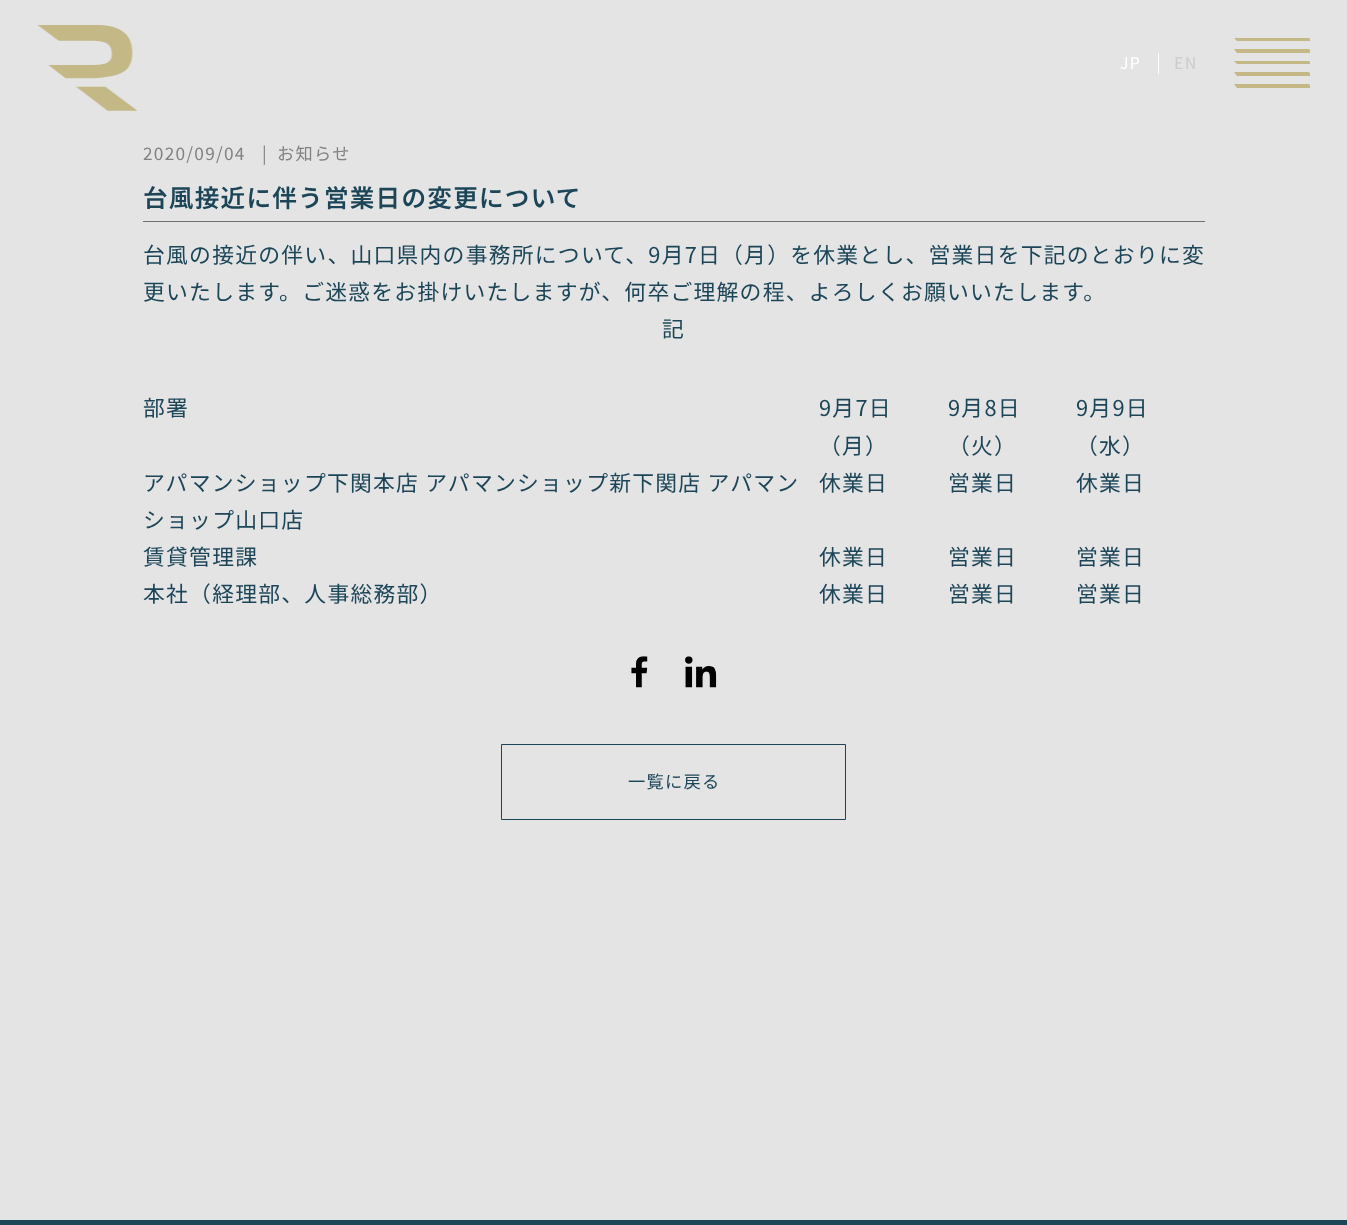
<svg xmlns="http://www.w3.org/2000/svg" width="1347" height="1225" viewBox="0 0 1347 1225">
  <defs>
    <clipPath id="clip1"><path d="M0 38h1310v50H0z"/></clipPath>
  </defs>
  <rect width="100%" height="100%" fill="#e4e4e4"/>
  <image x="37" y="25" width="101" height="86" href="img/1.png"/>
  <path d="M1158 53h1v21H1158z" fill="#fff"/>
  <g clip-path="url(#clip1)">
    <path d="M1234 38H1309L1312 41H1237Z" fill="#c3b886"/>
    <path d="M1234 49H1309L1312 53H1237Z" fill="#c3b886"/>
    <path d="M1234 61H1309L1312 64H1237Z" fill="#c3b886"/>
    <path d="M1234 72H1309L1312 76H1237Z" fill="#c3b886"/>
    <path d="M1234 84H1309L1312 88H1237Z" fill="#c3b886"/>
  </g>
  <path d="M143 221h1062v1H143z" fill="#707070"/>
  <image x="631" y="656" width="17" height="32" href="img/2.png"/>
  <image x="685" y="656" width="32" height="32" href="img/3.png"/>
  <path d="M501.5 744.5h344v75H501.5z" fill="none" stroke="#1c4658"/>
  <path d="M0 1220h1347v5H0z" fill="#1c4658"/>
  <text x="1120" y="69" font-family="Noto Sans JP" font-size="16" letter-spacing="1.25" fill="#fff">JP</text>
  <text x="1174" y="69" font-family="Noto Sans JP" font-size="16" letter-spacing="1.25" fill="#ccc">EN</text>
  <g font-family="Noto Sans JP" font-size="17.25" letter-spacing="1.25" fill="#818181">
    <text x="143" y="160">2020/09/04</text>
    <text x="262" y="160">|</text>
    <text x="277" y="160">お知らせ</text>
  </g>
  <text x="143" y="207" font-family="Noto Sans JP" font-size="24.6" font-weight="600" letter-spacing="1.25" fill="#1c4658">台風接近に伴う営業日の変更について</text>
  <g font-family="Noto Sans JP" font-size="21.8" letter-spacing="1.25" fill="#1c4658">
    <text x="143" y="263">台風の接近の伴い、山口県内の事務所について、9月7日（月）を休業とし、営業日を下記のとおりに変</text>
    <text x="143" y="300">更いたします。ご迷惑をお掛けいたしますが、何卒ご理解の程、よろしくお願いいたします。</text>
    <text x="662" y="337">記</text>
    <text x="143" y="416">部署</text>
    <text x="819" y="416">9月7日</text>
    <text x="819" y="454">（月）</text>
    <text x="948" y="416">9月8日</text>
    <text x="948" y="454">（火）</text>
    <text x="1076" y="416">9月9日</text>
    <text x="1076" y="454">（水）</text>
    <text x="143" y="491">アパマンショップ下関本店 アパマンショップ新下関店 アパマン</text>
    <text x="143" y="528">ショップ山口店</text>
    <text x="819" y="491">休業日</text>
    <text x="948" y="491">営業日</text>
    <text x="1076" y="491">休業日</text>
    <text x="143" y="565">賃貸管理課</text>
    <text x="819" y="565">休業日</text>
    <text x="948" y="565">営業日</text>
    <text x="1076" y="565">営業日</text>
    <text x="143" y="602">本社（経理部、人事総務部）</text>
    <text x="819" y="602">休業日</text>
    <text x="948" y="602">営業日</text>
    <text x="1076" y="602">営業日</text>
  </g>
  <text x="628" y="788" font-family="Noto Sans JP" font-size="17.25" letter-spacing="1.25" fill="#1c4658">一覧に戻る</text>
</svg>
